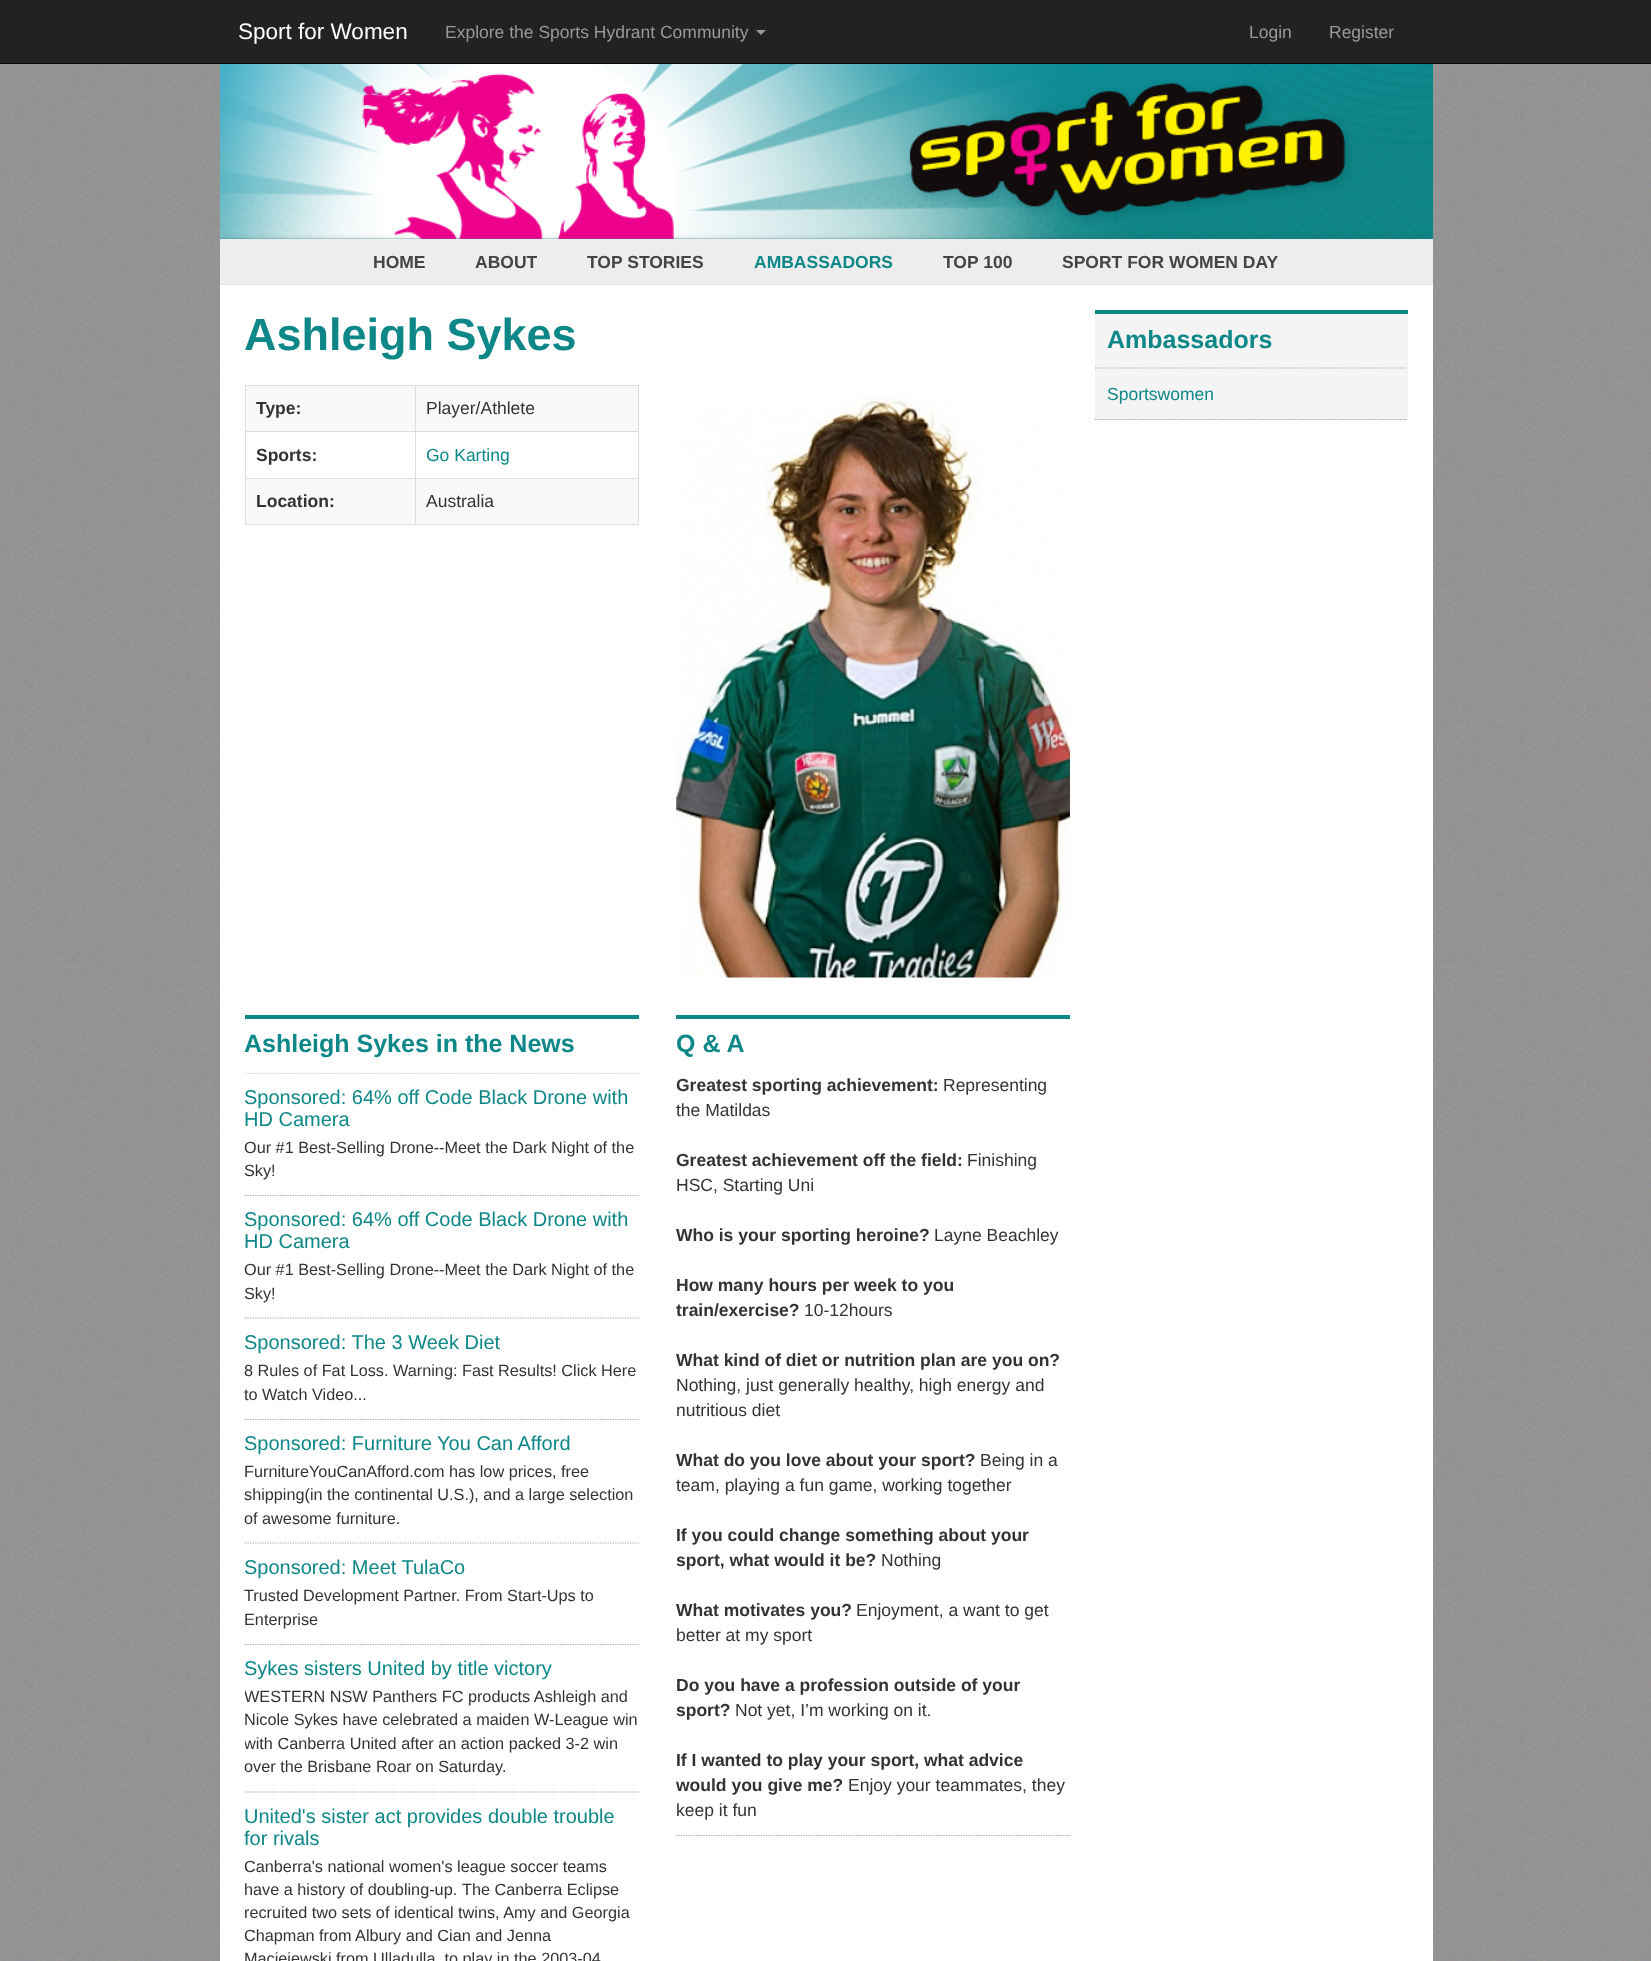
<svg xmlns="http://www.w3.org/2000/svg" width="1651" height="1961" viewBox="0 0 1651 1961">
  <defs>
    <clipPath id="clip1"><path d="M245 1073h394v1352H245z"/></clipPath>
  </defs>
  <rect width="100%" height="100%" fill="#fff"/>
  <image x="0" y="64" width="1651" height="1897" href="img/1.png"/>
  <path d="M0 0h1651v63H0z" fill="#222"/>
  <path d="M0 63h1651v1H0z" fill="#080808"/>
  <path d="M756 30H766L761 35Z" fill="#999"/>
  <path d="M220 285h1213v1676H220z" fill="#fff"/>
  <path d="M220 64h1213v175H220z" fill="#0d8787"/>
  <image x="220" y="64" width="1213" height="175" href="img/2.png"/>
  <path d="M220 239h1213v45H220z" fill="#ededed"/>
  <path d="M220 284h1213v1H220z" fill="#dedede"/>
  <path d="M245 385h394v1H245z" fill="#ddd"/>
  <path d="M638 385h1v140H638z" fill="#ddd"/>
  <path d="M245 524h394v1H245z" fill="#ddd"/>
  <path d="M245 385h1v140H245z" fill="#ddd"/>
  <path d="M246 386h169v45H246z" fill="#f9f9f9"/>
  <path d="M416 386h222v45H416z" fill="#f9f9f9"/>
  <path d="M415 431h224v1H415z" fill="#ddd"/>
  <path d="M415 478h224v1H415z" fill="#ddd"/>
  <path d="M415 478h1v47H415z" fill="#ddd"/>
  <path d="M245 478h171v1H245z" fill="#ddd"/>
  <path d="M415 431h1v48H415z" fill="#ddd"/>
  <path d="M245 431h171v1H245z" fill="#ddd"/>
  <path d="M415 385h1v48H415z" fill="#ddd"/>
  <path d="M246 479h169v45H246z" fill="#f9f9f9"/>
  <path d="M416 479h222v45H416z" fill="#f9f9f9"/>
  <image x="676" y="396" width="394" height="582" href="img/3.png"/>
  <path d="M245 1015h394v4H245z" fill="#0d8787"/>
  <g clip-path="url(#clip1)">
    <path d="M245 1073H639" fill="none" stroke="#a4a4a4" stroke-width="1.2" stroke-dasharray="1.25 1.25"/>
  </g>
  <path d="M245 1195.5H639" fill="none" stroke="#a4a4a4" stroke-width="1.2" stroke-dasharray="1.25 1.25"/>
  <path d="M245 1318H639" fill="none" stroke="#a4a4a4" stroke-width="1.2" stroke-dasharray="1.25 1.25"/>
  <path d="M245 1419.5H639" fill="none" stroke="#a4a4a4" stroke-width="1.2" stroke-dasharray="1.25 1.25"/>
  <path d="M245 1543H639" fill="none" stroke="#a4a4a4" stroke-width="1.2" stroke-dasharray="1.25 1.25"/>
  <path d="M245 1644.5H639" fill="none" stroke="#a4a4a4" stroke-width="1.2" stroke-dasharray="1.25 1.25"/>
  <path d="M245 1792H639" fill="none" stroke="#a4a4a4" stroke-width="1.2" stroke-dasharray="1.25 1.25"/>
  <path d="M676 1015h394v4H676z" fill="#0d8787"/>
  <path d="M676 1835.5H1070" fill="none" stroke="#a4a4a4" stroke-width="1.2" stroke-dasharray="1.25 1.25"/>
  <path d="M1095 314h313v106H1095z" fill="#f4f4f4"/>
  <path d="M1095 310h313v4H1095z" fill="#0d8787"/>
  <path d="M1095 419.5H1407.5" fill="none" stroke="#a4a4a4" stroke-width="1.2" stroke-dasharray="1.25 1.25"/>
  <path d="M1095 368H1407.5" fill="none" stroke="#a4a4a4" stroke-width="1.2" stroke-dasharray="1.25 1.25"/>
  <text x="238" y="39" font-family="Liberation Sans" font-size="22.5" fill="#fff">Sport for Women</text>
  <g font-family="Liberation Sans" font-size="17.5" fill="#999">
    <text x="445" y="38">Explore the Sports Hydrant Community</text>
    <text x="1249" y="38">Login</text>
    <text x="1329" y="38">Register</text>
  </g>
  <g font-family="Liberation Sans" font-size="17.5" font-weight="bold" fill="#444">
    <text x="373" y="268">HOME</text>
    <text x="475" y="268">ABOUT</text>
    <text x="587" y="268">TOP STORIES</text>
  </g>
  <text x="754" y="268" font-family="Liberation Sans" font-size="17.5" font-weight="bold" fill="#0d8787">AMBASSADORS</text>
  <g font-family="Liberation Sans" font-size="17.5" font-weight="bold" fill="#444">
    <text x="943" y="268">TOP 100</text>
    <text x="1062" y="268">SPORT FOR WOMEN DAY</text>
  </g>
  <text x="244" y="350" font-family="Liberation Sans" font-size="45" font-weight="bold" fill="#0d8787">Ashleigh Sykes</text>
  <text x="256" y="414" font-family="Liberation Sans" font-size="17.5" font-weight="bold" fill="#333">Type:</text>
  <text x="426" y="414" font-family="Liberation Sans" font-size="17.5" fill="#333">Player/Athlete</text>
  <text x="256" y="461" font-family="Liberation Sans" font-size="17.5" font-weight="bold" fill="#333">Sports:</text>
  <text x="426" y="461" font-family="Liberation Sans" font-size="17.5" fill="#0d8787">Go Karting</text>
  <text x="256" y="507" font-family="Liberation Sans" font-size="17.5" font-weight="bold" fill="#333">Location:</text>
  <text x="426" y="507" font-family="Liberation Sans" font-size="17.5" fill="#333">Australia</text>
  <text x="244" y="1052" font-family="Liberation Sans" font-size="25" font-weight="bold" fill="#0d8787">Ashleigh Sykes in the News</text>
  <g font-family="Liberation Sans" font-size="20" fill="#0d8787">
    <text x="244" y="1104">Sponsored: 64% off Code Black Drone with</text>
    <text x="244" y="1126">HD Camera</text>
  </g>
  <g font-family="Liberation Sans" font-size="16.25" fill="#333">
    <text x="244" y="1153">Our #1 Best-Selling Drone--Meet the Dark Night of the</text>
    <text x="244" y="1176">Sky!</text>
  </g>
  <g font-family="Liberation Sans" font-size="20" fill="#0d8787">
    <text x="244" y="1226">Sponsored: 64% off Code Black Drone with</text>
    <text x="244" y="1248">HD Camera</text>
  </g>
  <g font-family="Liberation Sans" font-size="16.25" fill="#333">
    <text x="244" y="1275">Our #1 Best-Selling Drone--Meet the Dark Night of the</text>
    <text x="244" y="1299">Sky!</text>
  </g>
  <text x="244" y="1349" font-family="Liberation Sans" font-size="20" fill="#0d8787">Sponsored: The 3 Week Diet</text>
  <g font-family="Liberation Sans" font-size="16.25" fill="#333">
    <text x="244" y="1376">8 Rules of Fat Loss. Warning: Fast Results! Click Here</text>
    <text x="244" y="1400">to Watch Video...</text>
  </g>
  <text x="244" y="1450" font-family="Liberation Sans" font-size="20" fill="#0d8787">Sponsored: Furniture You Can Afford</text>
  <g font-family="Liberation Sans" font-size="16.25" fill="#333">
    <text x="244" y="1477">FurnitureYouCanAfford.com has low prices, free</text>
    <text x="244" y="1500">shipping(in the continental U.S.), and a large selection</text>
    <text x="244" y="1524">of awesome furniture.</text>
  </g>
  <text x="244" y="1574" font-family="Liberation Sans" font-size="20" fill="#0d8787">Sponsored: Meet TulaCo</text>
  <g font-family="Liberation Sans" font-size="16.25" fill="#333">
    <text x="244" y="1601">Trusted Development Partner. From Start-Ups to</text>
    <text x="244" y="1625">Enterprise</text>
  </g>
  <text x="244" y="1675" font-family="Liberation Sans" font-size="20" fill="#0d8787">Sykes sisters United by title victory</text>
  <g clip-path="url(#clip1)">
    <text x="244" y="1702" font-family="Liberation Sans" font-size="16.25" fill="#333">WESTERN NSW Panthers FC products Ashleigh and</text>
  </g>
  <text x="244" y="1725" font-family="Liberation Sans" font-size="16.25" fill="#333">Nicole Sykes have celebrated a maiden W-League win</text>
  <g clip-path="url(#clip1)">
    <text x="244" y="1749" font-family="Liberation Sans" font-size="16.25" fill="#333">with Canberra United after an action packed 3-2 win</text>
  </g>
  <text x="244" y="1772" font-family="Liberation Sans" font-size="16.25" fill="#333">over the Brisbane Roar on Saturday.</text>
  <g font-family="Liberation Sans" font-size="20" fill="#0d8787">
    <text x="244" y="1823">United's sister act provides double trouble</text>
    <text x="244" y="1845">for rivals</text>
  </g>
  <g font-family="Liberation Sans" font-size="16.25" fill="#333">
    <text x="244" y="1872">Canberra's national women's league soccer teams</text>
    <text x="244" y="1895">have a history of doubling-up.</text>
    <text x="462" y="1895">The Canberra Eclipse</text>
    <text x="244" y="1918">recruited two sets of identical twins, Amy and Georgia</text>
    <text x="244" y="1941">Chapman from Albury and Cian and Jenna</text>
    <text x="244" y="1964">Maciejewski from Ulladulla, to play in the 2003-04</text>
  </g>
  <text x="676" y="1052" font-family="Liberation Sans" font-size="25" font-weight="bold" fill="#0d8787">Q &amp; A</text>
  <text x="676" y="1091" font-family="Liberation Sans" font-size="17.5" font-weight="bold" fill="#333">Greatest sporting achievement:</text>
  <g font-family="Liberation Sans" font-size="17.5" fill="#333">
    <text x="943" y="1091">Representing</text>
    <text x="676" y="1116">the Matildas</text>
  </g>
  <text x="676" y="1166" font-family="Liberation Sans" font-size="17.5" font-weight="bold" fill="#333">Greatest achievement off the field:</text>
  <g font-family="Liberation Sans" font-size="17.5" fill="#333">
    <text x="967" y="1166">Finishing</text>
    <text x="676" y="1191">HSC, Starting Uni</text>
  </g>
  <text x="676" y="1241" font-family="Liberation Sans" font-size="17.5" font-weight="bold" fill="#333">Who is your sporting heroine?</text>
  <text x="934" y="1241" font-family="Liberation Sans" font-size="17.5" fill="#333">Layne Beachley</text>
  <g font-family="Liberation Sans" font-size="17.5" font-weight="bold" fill="#333">
    <text x="676" y="1291">How many hours per week to you</text>
    <text x="676" y="1316">train/exercise?</text>
  </g>
  <text x="804" y="1316" font-family="Liberation Sans" font-size="17.5" fill="#333">10-12hours</text>
  <text x="676" y="1366" font-family="Liberation Sans" font-size="17.5" font-weight="bold" fill="#333">What kind of diet or nutrition plan are you on?</text>
  <g font-family="Liberation Sans" font-size="17.5" fill="#333">
    <text x="676" y="1391">Nothing, just generally healthy, high energy and</text>
    <text x="676" y="1416">nutritious diet</text>
  </g>
  <text x="676" y="1466" font-family="Liberation Sans" font-size="17.5" font-weight="bold" fill="#333">What do you love about your sport?</text>
  <g font-family="Liberation Sans" font-size="17.5" fill="#333">
    <text x="980" y="1466">Being in a</text>
    <text x="676" y="1491">team, playing a fun game, working together</text>
  </g>
  <g font-family="Liberation Sans" font-size="17.5" font-weight="bold" fill="#333">
    <text x="676" y="1541">If you could change something about your</text>
    <text x="676" y="1566">sport, what would it be?</text>
  </g>
  <text x="881" y="1566" font-family="Liberation Sans" font-size="17.5" fill="#333">Nothing</text>
  <text x="676" y="1616" font-family="Liberation Sans" font-size="17.5" font-weight="bold" fill="#333">What motivates you?</text>
  <g font-family="Liberation Sans" font-size="17.5" fill="#333">
    <text x="856" y="1616">Enjoyment, a want to get</text>
    <text x="676" y="1641">better at my sport</text>
  </g>
  <g font-family="Liberation Sans" font-size="17.5" font-weight="bold" fill="#333">
    <text x="676" y="1691">Do you have a profession outside of your</text>
    <text x="676" y="1716">sport?</text>
  </g>
  <text x="735" y="1716" font-family="Liberation Sans" font-size="17.5" fill="#333">Not yet, I’m working on it.</text>
  <g font-family="Liberation Sans" font-size="17.5" font-weight="bold" fill="#333">
    <text x="676" y="1766">If I wanted to play your sport, what advice</text>
    <text x="676" y="1791">would you give me?</text>
  </g>
  <g font-family="Liberation Sans" font-size="17.5" fill="#333">
    <text x="848" y="1791">Enjoy your teammates, they</text>
    <text x="676" y="1816">keep it fun</text>
  </g>
  <text x="1107" y="348" font-family="Liberation Sans" font-size="25" font-weight="bold" fill="#0d8787">Ambassadors</text>
  <text x="1107" y="400" font-family="Liberation Sans" font-size="17.5" fill="#0d8787">Sportswomen</text>
</svg>
